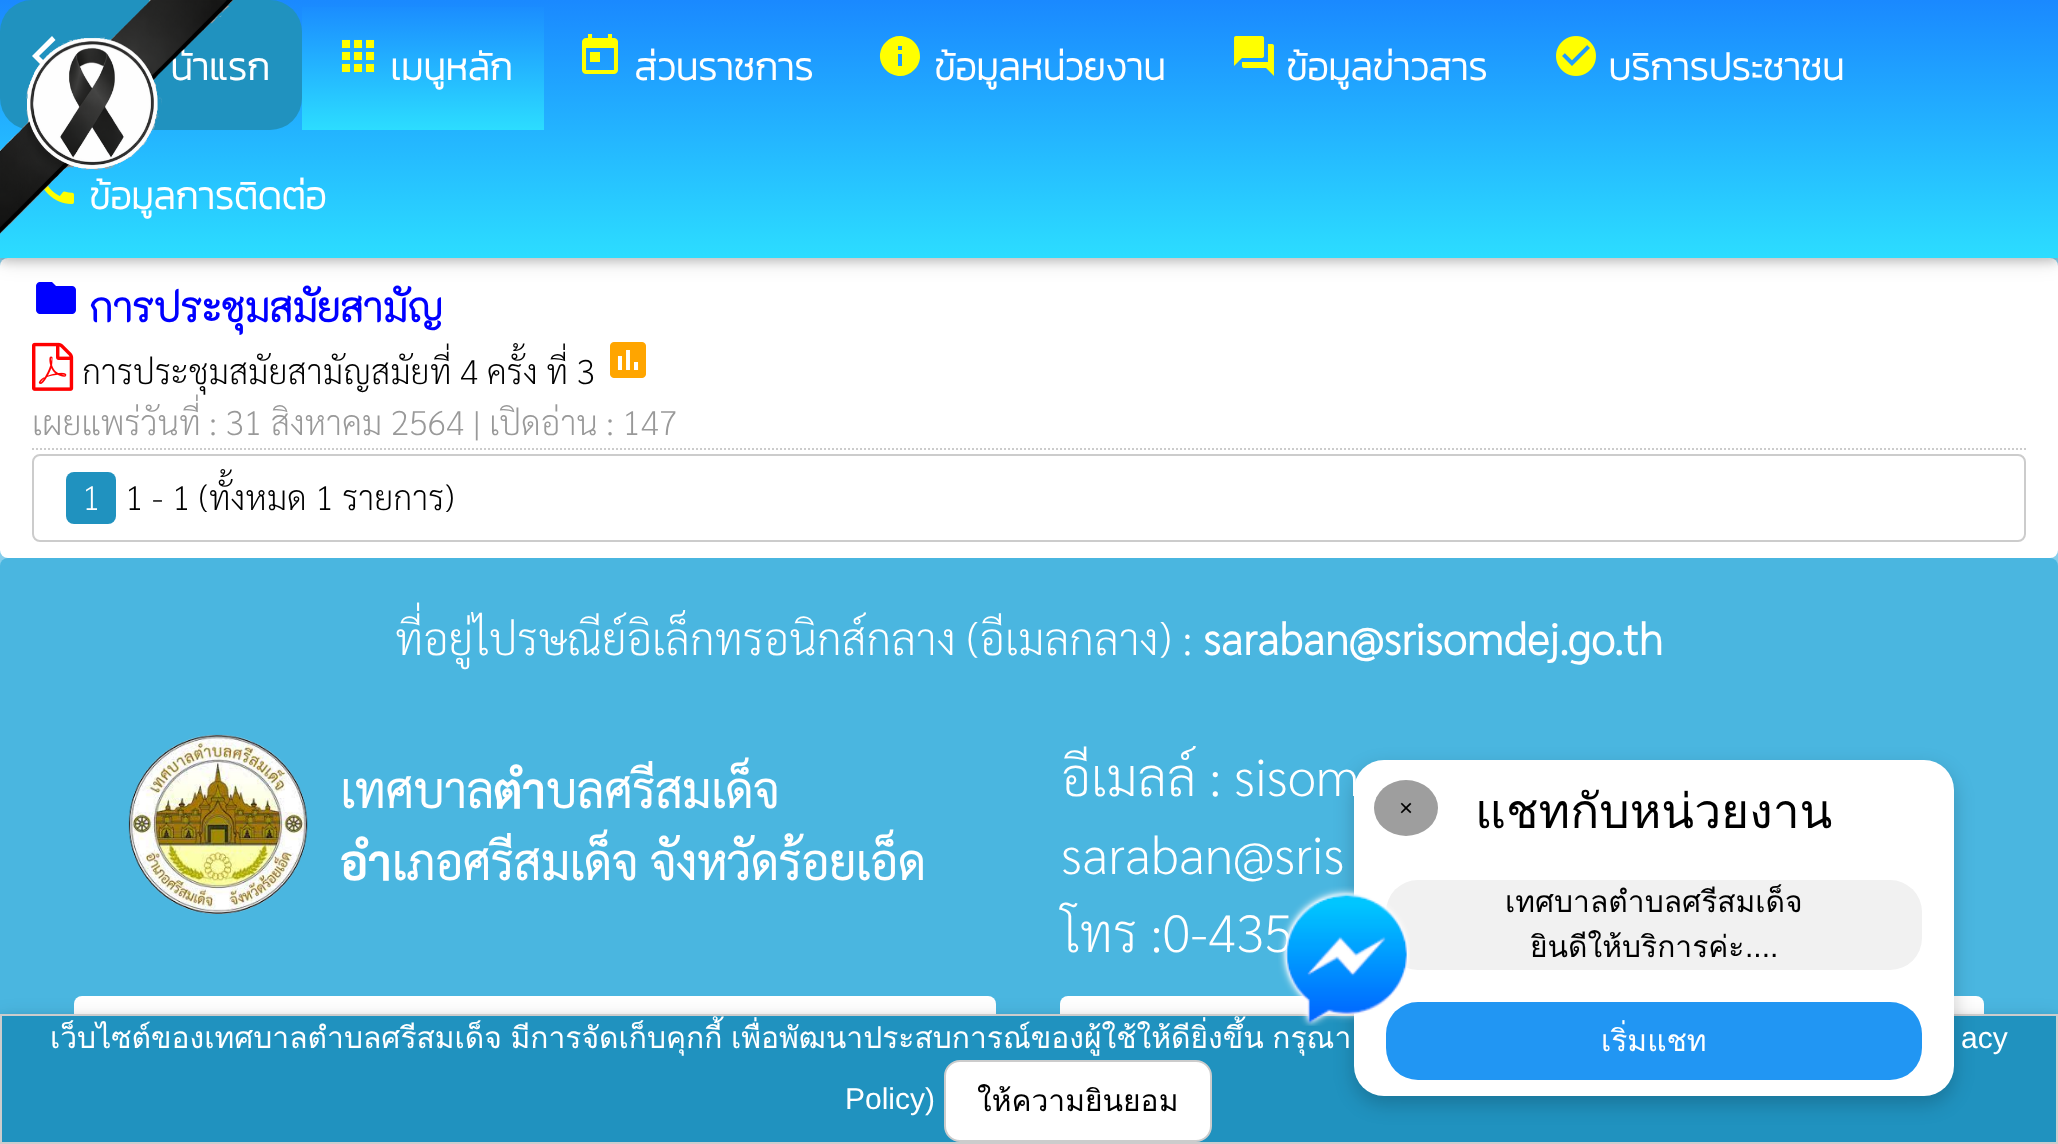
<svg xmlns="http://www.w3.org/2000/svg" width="2058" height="1144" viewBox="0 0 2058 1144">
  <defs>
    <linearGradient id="g1" gradientUnits="userSpaceOnUse" x1="1029" y1="0" x2="1029" y2="258"><stop offset="0" stop-color="#1a89ff"/><stop offset="1" stop-color="#2cddff"/></linearGradient>
    <linearGradient id="g2" gradientUnits="userSpaceOnUse" x1="423" y1="0" x2="423" y2="130"><stop offset="0" stop-color="#1a89ff"/><stop offset="1" stop-color="#2cddff"/></linearGradient>
  </defs>
  <rect width="100%" height="100%" fill="#87ceeb"/>
  <rect y="258" width="2058" height="300" rx="8" fill="#fff"/>
  <image x="36" y="282" width="40" height="32" href="img/7.png"/>
  <path d="M0 4h2058v258H0z" fill="#0000001f" filter="blur(10px)"/>
  <path d="M0 4h2058v258H0z" fill="#00000029" filter="blur(5px)"/>
  <path d="M0 0h2058v258H0z" fill="url(#g1)"/>
  <rect width="302" height="130" rx="32" fill="#2092bf"/>
  <path d="M55.5 40L39 56L55.5 72L52 76L32 56L52 36Z" fill="#fff"/>
  <path d="M302 7h242v123H302z" fill="url(#g2)"/>
  <image x="341" y="39" width="34" height="34" href="img/2.png"/>
  <image x="582" y="34" width="36" height="40" href="img/3.png"/>
  <path d="M902 50V46H898V50ZM902 66V54H898V66ZM886 42C899 28.5 921.5 39.5 920 58C919.5 62.5 917.5 67 914 70C901 83.5 878.5 72.5 880 54C880.5 49.5 882.5 45 886 42Z" fill="#ff0"/>
  <image x="1234" y="36" width="40" height="40" href="img/4.png"/>
  <image x="1556" y="36" width="40" height="40" href="img/5.png"/>
  <image x="44" y="185" width="30" height="19" href="img/6.png"/>
  <image x="32" y="342" width="42" height="49" href="img/8.png"/>
  <image x="610" y="342" width="36" height="36" href="img/9.png"/>
  <path d="M32 449H2026" fill="none" stroke="#ccc" stroke-width="2" stroke-dasharray="2 2"/>
  <rect x="33" y="455" width="1992" height="86" rx="7" fill="none" stroke="#ccc" stroke-width="2"/>
  <rect x="66" y="472" width="50" height="52" rx="8" fill="#2092bf"/>
  <rect y="558" width="2058" height="580" rx="8" fill="#4ab6e0"/>
  <image x="128" y="734" width="180" height="180" href="img/10.png"/>
  <rect x="74" y="996" width="922" height="132" rx="8" fill="#fff"/>
  <rect x="1060" y="996" width="924" height="132" rx="8" fill="#fff"/>
  <path d="M0 1018h2058v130H0z" fill="#0000001f" filter="blur(10px)"/>
  <path d="M0 1018h2058v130H0z" fill="#00000029" filter="blur(5px)"/>
  <path d="M1 1015h2056v128H1z" fill="#2092bf" stroke="#ccc" stroke-width="2"/>
  <rect x="1354" y="768" width="600" height="336" rx="30" fill="#00000033" filter="blur(10px)"/>
  <rect x="1354" y="760" width="600" height="336" rx="30" fill="#fff"/>
  <ellipse cx="1406" cy="808" rx="32" ry="28" fill="#9e9e9e"/>
  <rect x="1386" y="880" width="536" height="90" rx="32" fill="#f1f1f1"/>
  <rect x="1386" y="1002" width="536" height="78" rx="32" fill="#2196f3"/>
  <rect x="945" y="1061" width="266" height="80" rx="15" fill="#fff" stroke="#ccc" stroke-width="2"/>
  <g font-family="Kanit" font-size="38" font-weight="bold" fill="#fff">
    <text x="170" y="80">น้าแรก</text>
    <text x="390" y="80">เมนูหลัก</text>
    <text x="634" y="80">ส่วนราชการ</text>
    <text x="934" y="80">ข้อมูลหน่วยงาน</text>
    <text x="1286" y="80">ข้อมูลข่าวสาร</text>
    <text x="1608" y="80">บริการประชาชน</text>
    <text x="89" y="209">ข้อมูลการติดต่อ</text>
  </g>
  <image x="0" y="0" width="233" height="239" href="img/1.png"/>
  <text x="89" y="322" font-family="'K2D'" font-size="40" font-weight="bold" fill="#00f">การประชุมสมัยสามัญ</text>
  <text x="82" y="384" font-family="Sarabun" font-size="34" font-weight="200" fill="#000">การประชุมสมัยสามัญสมัยที่ 4 ครั้ง ที่ 3</text>
  <text x="32" y="435" font-family="Sarabun" font-size="34" font-weight="200" fill="#999">เผยแพร่วันที่ : 31 สิงหาคม 2564 | เปิดอ่าน : 147</text>
  <text x="82" y="510" font-family="Sarabun" font-size="34" font-weight="200" fill="#fff">1</text>
  <text x="125" y="510" font-family="Sarabun" font-size="34" font-weight="200" fill="#000">1 - 1 (ทั้งหมด 1 รายการ)</text>
  <text x="395" y="655" font-family="Sarabun" font-size="44" font-weight="200" fill="#fff">ที่อยู่ไปรษณีย์อิเล็กทรอนิกส์กลาง (อีเมลกลาง) :</text>
  <text x="1203" y="655" font-family="Sarabun" font-size="44" font-weight="bold" fill="#fff">saraban@srisomdej.go.th</text>
  <g font-family="Sarabun" font-size="48" font-weight="bold" fill="#fff">
    <text x="340" y="808">เทศบาลตำบลศรีสมเด็จ</text>
    <text x="340" y="880">อำเภอศรีสมเด็จ จังหวัดร้อยเอ็ด</text>
  </g>
  <g font-family="Sarabun" font-size="52" font-weight="200" fill="#fff">
    <text x="1061" y="796">อีเมลล์ : sisom</text>
    <text x="1061" y="874">saraban@sris</text>
    <text x="1061" y="952">โทร :0-435</text>
  </g>
  <text x="1399" y="816" font-family="Liberation Sans" font-size="24" fill="#000">×</text>
  <text x="1475" y="828" font-family="Loma" font-size="48" fill="#000">แชทกับหน่วยงาน</text>
  <g font-family="Loma" font-size="30" fill="#000">
    <text x="1505" y="912">เทศบาลตำบลศรีสมเด็จ</text>
    <text x="1530" y="957">ยินดีให้บริการค่ะ</text>
  </g>
  <text x="1745" y="957" font-family="Liberation Sans" font-size="30" fill="#000">....</text>
  <g font-family="Loma" font-size="30" fill="#fff">
    <text x="1601" y="1051">เริ่มแชท</text>
    <text x="50" y="1048" word-spacing="-1.5">เว็บไซต์ของเทศบาลตำบลศรีสมเด็จ มีการจัดเก็บคุกกี้ เพื่อพัฒนาประสบการณ์ของผู้ใช้ให้ดียิ่งขึ้น กรุณา</text>
  </g>
  <image x="1278" y="886" width="132" height="140" href="img/11.png"/>
  <g font-family="Liberation Sans" font-size="30" fill="#fff">
    <text x="1961" y="1048">acy</text>
    <text x="845" y="1109">Policy)</text>
  </g>
  <text x="977" y="1111" font-family="Loma" font-size="30" fill="#000">ให้ความยินยอม</text>
</svg>
